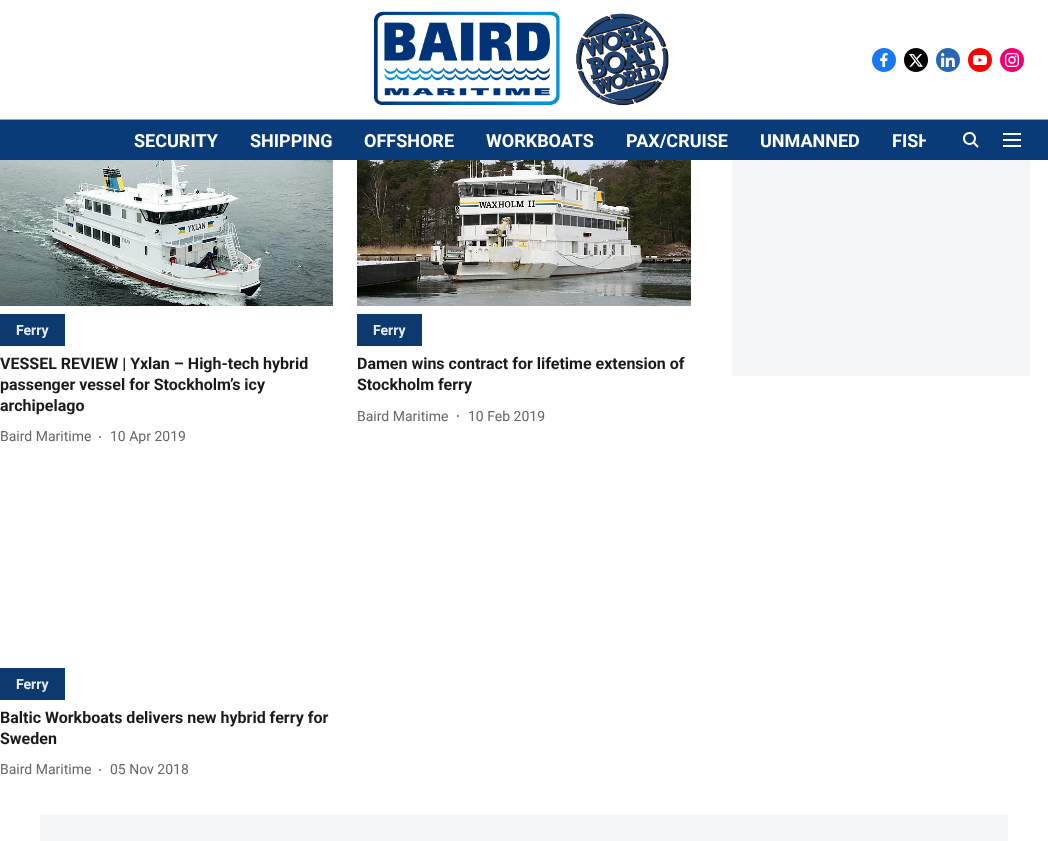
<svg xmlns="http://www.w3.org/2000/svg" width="1048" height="841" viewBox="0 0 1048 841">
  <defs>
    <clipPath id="clip1"><path d="M118 121h808v39H118z"/></clipPath>
  </defs>
  <rect width="100%" height="100%" fill="#fff"/>
  <path d="M0 119h1048v1H0z" fill="#a4a4a4"/>
  <image x="374" y="11" width="295" height="95" href="img/1.png"/>
  <image x="872" y="48" width="24" height="24" href="img/2.png"/>
  <image x="904" y="48" width="24" height="24" href="img/3.png"/>
  <image x="936" y="48" width="24" height="24" href="img/4.png"/>
  <image x="968" y="48" width="24" height="24" href="img/5.png"/>
  <image x="1000" y="48" width="24" height="24" href="img/6.png"/>
  <path d="M0 120h1048v40H0z" fill="#093b78"/>
  <image x="962" y="132" width="17" height="16" href="img/7.png"/>
  <image x="1003" y="133" width="18" height="14" href="img/8.png"/>
  <image x="0" y="160" width="333" height="146" href="img/9.png"/>
  <path d="M0 314h65v32H0z" fill="#0c3a6e"/>
  <circle cx="100" cy="437" r="1" fill="#666"/>
  <image x="357" y="160" width="334" height="146" href="img/10.png"/>
  <path d="M357 314h65v32H357z" fill="#0c3a6e"/>
  <circle cx="458" cy="416" r="1" fill="#666"/>
  <path d="M732 160h298v216H732z" fill="#f4f5f7"/>
  <path d="M0 668h65v32H0z" fill="#0c3a6e"/>
  <circle cx="100" cy="770" r="1" fill="#666"/>
  <path d="M40 815h968v26H40z" fill="#f4f5f7"/>
  <g font-family="Roboto" font-size="18" font-weight="bold" fill="#fff">
    <text x="134" y="147">SECURITY</text>
    <text x="250" y="147">SHIPPING</text>
    <text x="364" y="147">OFFSHORE</text>
    <text x="486" y="147">WORKBOATS</text>
    <text x="626" y="147">PAX/CRUISE</text>
    <text x="760" y="147">UNMANNED</text>
  </g>
  <g clip-path="url(#clip1)">
    <text x="892" y="147" font-family="Roboto" font-size="18" font-weight="bold" fill="#fff">FISH</text>
  </g>
  <text x="16" y="335" font-family="Roboto" font-size="14" font-weight="bold" fill="#e7ebf1">Ferry</text>
  <g font-family="Roboto" font-size="16" font-weight="bold" fill="#1a1a1a">
    <text x="0" y="369">VESSEL REVIEW | Yxlan – High-tech hybrid</text>
    <text x="0" y="390">passenger vessel for Stockholm’s icy</text>
    <text x="0" y="411">archipelago</text>
  </g>
  <g font-family="Roboto" font-size="14" fill="#666">
    <text x="0" y="441">Baird Maritime</text>
    <text x="110" y="441">10 Apr 2019</text>
  </g>
  <text x="373" y="335" font-family="Roboto" font-size="14" font-weight="bold" fill="#e7ebf1">Ferry</text>
  <g font-family="Roboto" font-size="16" font-weight="bold" fill="#1a1a1a">
    <text x="357" y="369">Damen wins contract for lifetime extension of</text>
    <text x="357" y="390">Stockholm ferry</text>
  </g>
  <g font-family="Roboto" font-size="14" fill="#666">
    <text x="357" y="421">Baird Maritime</text>
    <text x="468" y="421">10 Feb 2019</text>
  </g>
  <text x="16" y="689" font-family="Roboto" font-size="14" font-weight="bold" fill="#e7ebf1">Ferry</text>
  <g font-family="Roboto" font-size="16" font-weight="bold" fill="#1a1a1a">
    <text x="0" y="723">Baltic Workboats delivers new hybrid ferry for</text>
    <text x="0" y="744">Sweden</text>
  </g>
  <g font-family="Roboto" font-size="14" fill="#666">
    <text x="0" y="774">Baird Maritime</text>
    <text x="110" y="774">05 Nov 2018</text>
  </g>
</svg>
